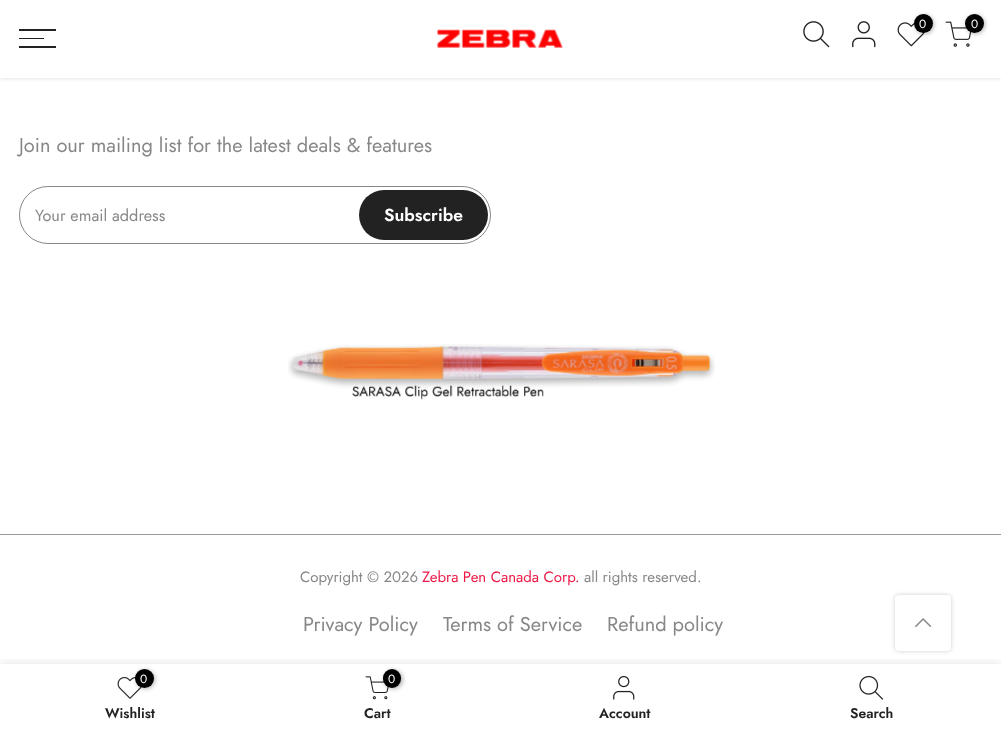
<svg xmlns="http://www.w3.org/2000/svg" width="1001" height="732" viewBox="0 0 1001 732">
  <defs>
    <clipPath id="clip1"><path d="M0 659h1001v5H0z"/></clipPath>
  </defs>
  <rect width="100%" height="100%" fill="#fff"/>
  <path d="M0 1h1001v78H0z" fill="#0000001a" filter="blur(2px)"/>
  <path d="M0 0h1001v78H0z" fill="#fff"/>
  <image x="803" y="21" width="27" height="27" href="img/1.png"/>
  <image x="852" y="21" width="24" height="27" href="img/2.png"/>
  <image x="897" y="22" width="28" height="25" href="img/3.png"/>
  <rect x="915" y="15" width="19" height="19" rx="9.5" fill="#0000004d" filter="blur(2px)"/>
  <circle cx="923.5" cy="23.5" r="9.5" fill="#000"/>
  <image x="945" y="21" width="27" height="26" href="img/4.png"/>
  <rect x="966" y="15" width="19" height="19" rx="9.5" fill="#0000004d" filter="blur(2px)"/>
  <circle cx="974.5" cy="23.5" r="9.5" fill="#000"/>
  <path d="M19 29h37v2H19z" fill="#222"/>
  <path d="M19 38h25v1H19z" fill="#222"/>
  <path d="M19 46h37v2H19z" fill="#222"/>
  <image x="437" y="29" width="126" height="19" href="img/5.png"/>
  <path d="M0 534h1001v1H0z" fill="#999"/>
  <rect x="19.5" y="186.5" width="471" height="57" rx="28.5" fill="none" stroke="#878787"/>
  <rect x="359" y="190" width="129" height="50" rx="25" fill="#222"/>
  <image x="288" y="344" width="427" height="56" href="img/6.png"/>
  <rect x="895" y="595" width="56" height="56" rx="4" fill="#00000033" filter="blur(2px)"/>
  <rect x="895" y="595" width="56" height="56" rx="4" fill="#fff"/>
  <image x="915" y="618" width="17" height="10" href="img/7.png"/>
  <g clip-path="url(#clip1)">
    <path d="M0 664h1001v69H0z" fill="#0000001f" filter="blur(5.5px)"/>
  </g>
  <image x="117" y="677" width="25" height="22" href="img/8.png"/>
  <rect x="136" y="670" width="19" height="19" rx="9.5" fill="#0000004d" filter="blur(2px)"/>
  <circle cx="144.5" cy="678.5" r="9.5" fill="#000"/>
  <image x="365" y="676" width="24" height="24" href="img/9.png"/>
  <rect x="384" y="670" width="19" height="19" rx="9.5" fill="#0000004d" filter="blur(2px)"/>
  <rect x="383" y="669" width="18" height="19" rx="9" fill="#000"/>
  <image x="613" y="675" width="22" height="25" href="img/10.png"/>
  <image x="859" y="675" width="25" height="25" href="img/11.png"/>
  <g font-family="Jost" font-size="12" fill="#fff">
    <text x="919" y="28">0</text>
    <text x="971" y="28">0</text>
  </g>
  <text x="19" y="152" font-family="Jost" font-size="20" fill="#878787">Join our mailing list for the latest deals &amp; features</text>
  <text x="35" y="221" font-family="Jost" font-size="16.25" fill="#878787">Your email address</text>
  <text x="384" y="221" font-family="Jost" font-size="17.5" font-weight="600" fill="#fff">Subscribe</text>
  <text x="300" y="582" font-family="Jost" font-size="15" fill="#878787">Copyright © 2026</text>
  <text x="422" y="582" font-family="Jost" font-size="15" fill="#ed1846">Zebra Pen Canada Corp.</text>
  <text x="584" y="582" font-family="Jost" font-size="15" fill="#878787">all rights reserved.</text>
  <g font-family="Jost" font-size="20" fill="#878787">
    <text x="303" y="631">Privacy Policy</text>
    <text x="443" y="631">Terms of Service</text>
    <text x="607" y="631">Refund policy</text>
  </g>
  <text x="140" y="683" font-family="Jost" font-size="12" fill="#fff">0</text>
  <text x="105" y="718" font-family="Jost" font-size="14" font-weight="600" fill="#222">Wishlist</text>
  <text x="388" y="683" font-family="Jost" font-size="12" fill="#fff">0</text>
  <g font-family="Jost" font-size="14" font-weight="600" fill="#222">
    <text x="364" y="718">Cart</text>
    <text x="599" y="718">Account</text>
    <text x="850" y="718">Search</text>
  </g>
</svg>
